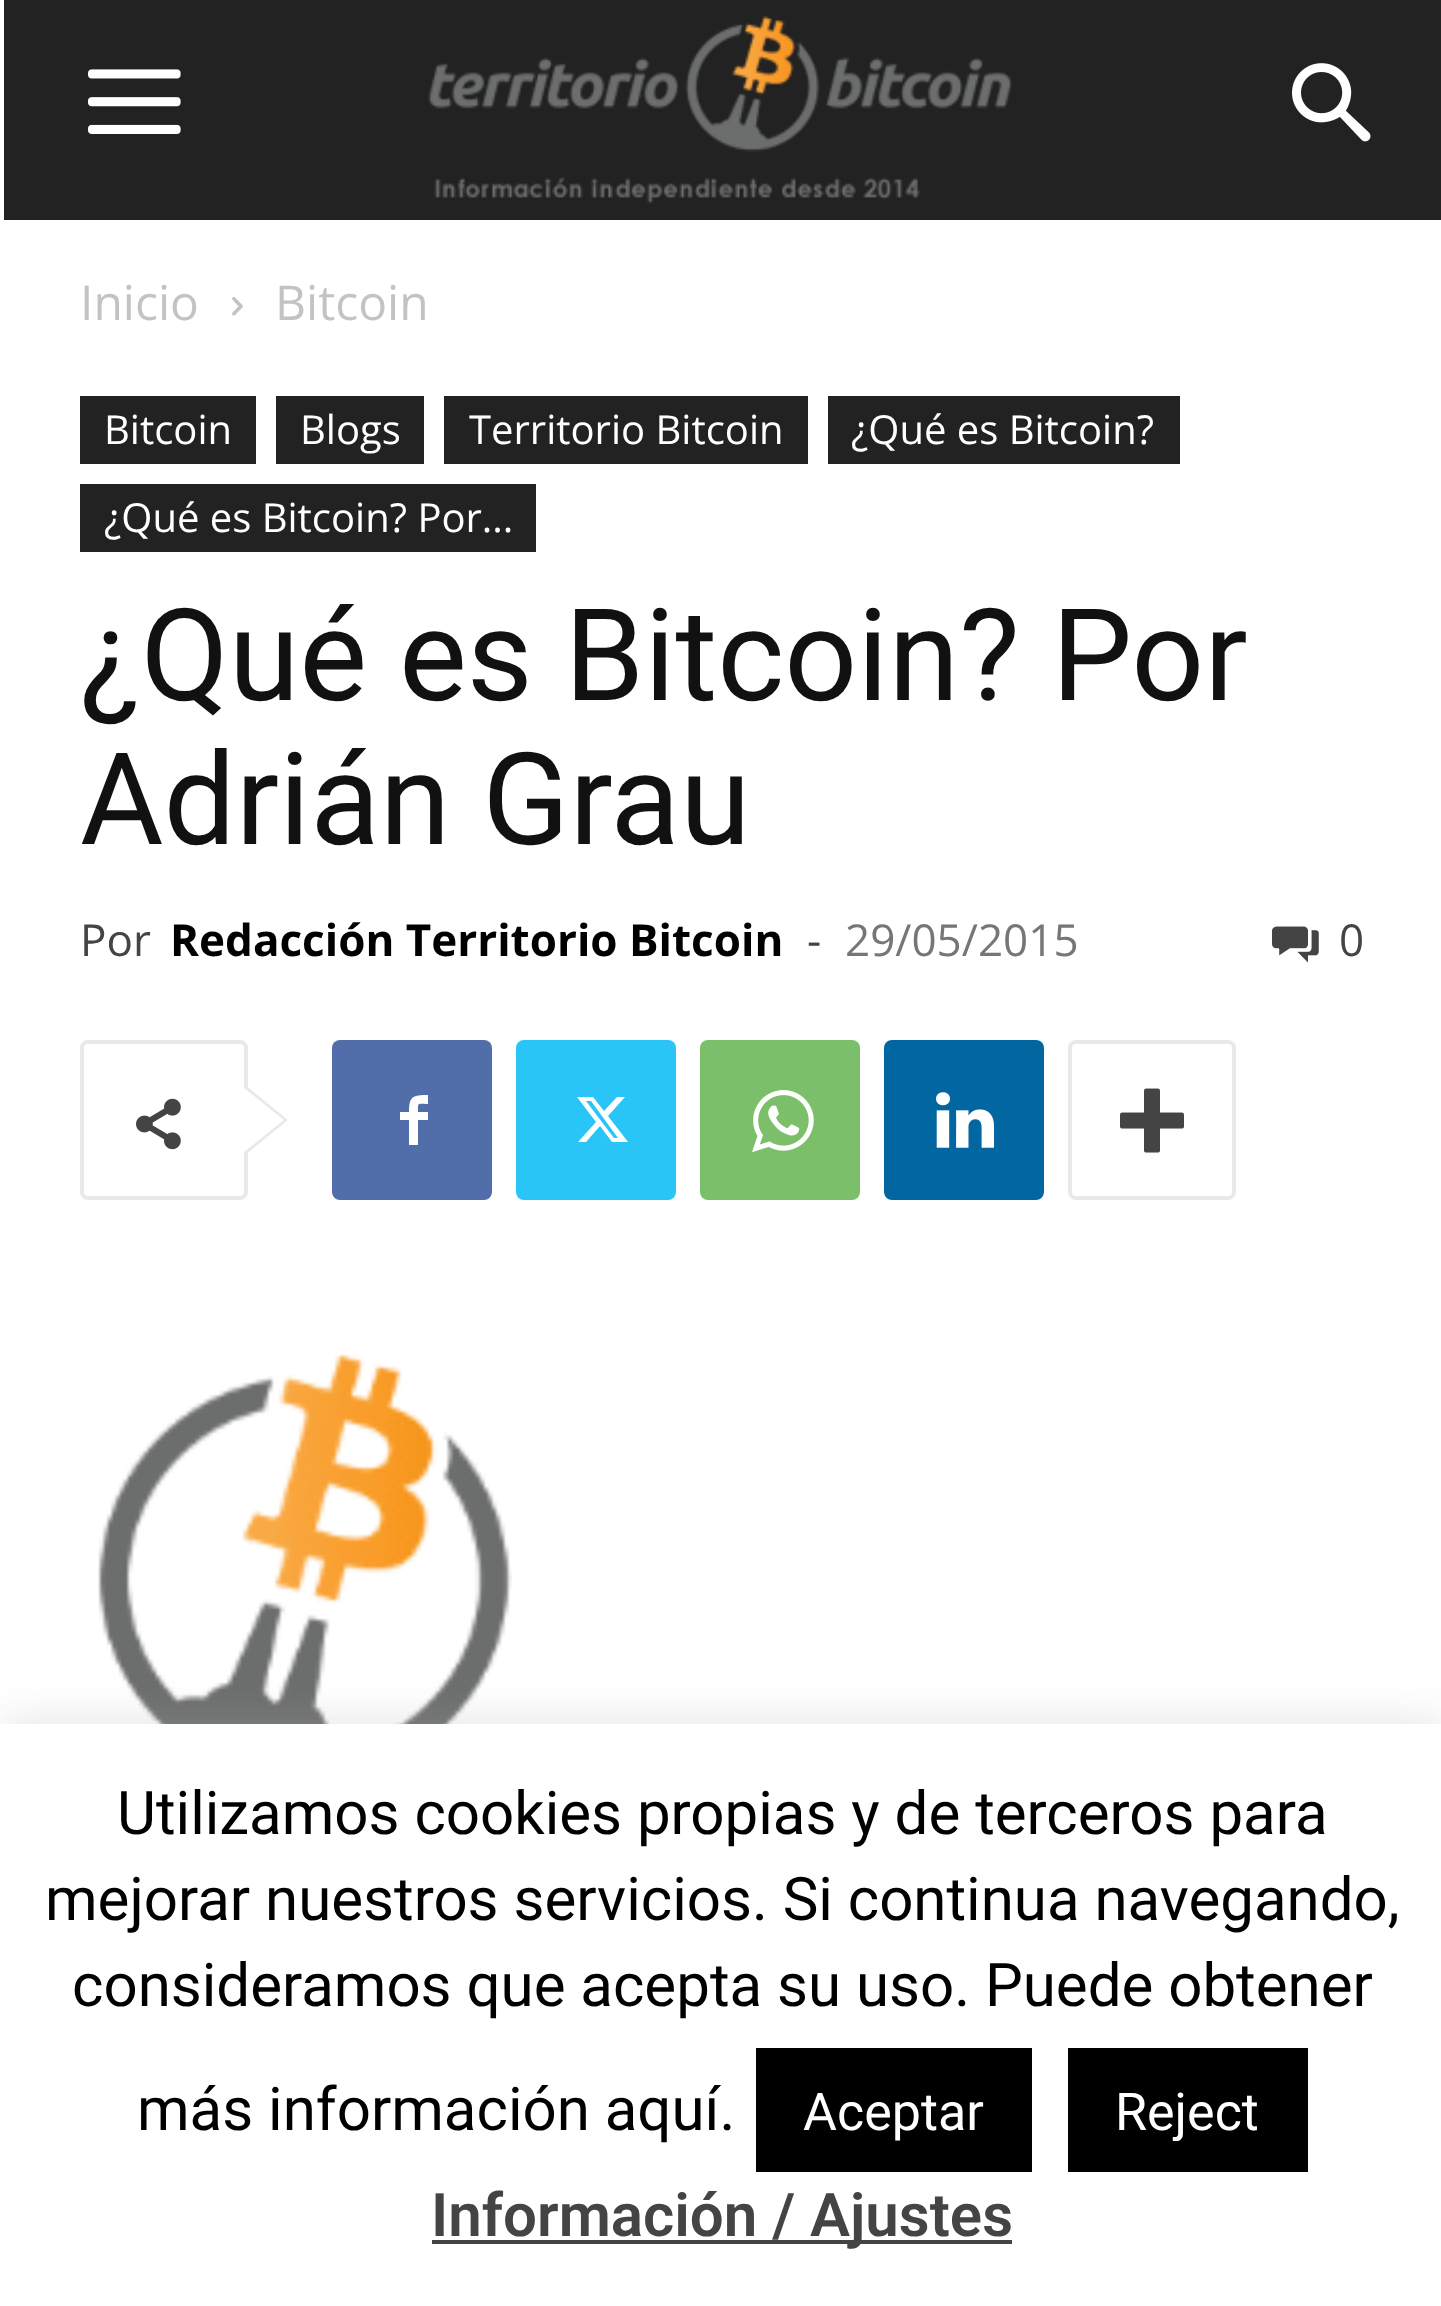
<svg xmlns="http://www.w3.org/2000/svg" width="1441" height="2306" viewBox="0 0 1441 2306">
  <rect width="100%" height="100%" fill="#fff"/>
  <path d="M4 0h1437v220H4z" fill="#222"/>
  <image x="88" y="69" width="93" height="65" href="img/1.png"/>
  <image x="428" y="16" width="584" height="188" href="img/2.png"/>
  <image x="1292" y="63" width="79" height="79" href="img/3.png"/>
  <image x="232" y="297" width="11" height="19" href="img/4.png"/>
  <path d="M80 396h176v68H80z" fill="#222"/>
  <path d="M276 396h148v68H276z" fill="#222"/>
  <path d="M444 396h364v68H444z" fill="#222"/>
  <path d="M828 396h352v68H828z" fill="#222"/>
  <path d="M80 484h456v68H80z" fill="#222"/>
  <image x="1272" y="926" width="47" height="37" href="img/5.png"/>
  <rect x="82" y="1042" width="164" height="156" rx="6" fill="none" stroke="#e9e9e9" stroke-width="4"/>
  <path d="M244 1156V1084L288 1120Z" fill="#e9e9e9"/>
  <image x="136" y="1098" width="45" height="52" href="img/6.png"/>
  <path d="M244 1152V1088L284 1120Z" fill="#fff"/>
  <rect x="332" y="1040" width="160" height="160" rx="8" fill="#516eab"/>
  <path d="M428 1104C417 1104 418 1102 418 1112H428V1120H418V1145H409V1120H400V1112H409C409 1096 413 1095 428 1095Z" fill="#fff"/>
  <rect x="516" y="1040" width="160" height="160" rx="8" fill="#29c5f6"/>
  <path d="M617 1097H625L608 1116L628 1142H612L600 1126L586 1142H578L596 1122L577 1097H593L604 1111ZM614 1138H618L591 1101H586Z" fill="#fff"/>
  <rect x="700" y="1040" width="160" height="160" rx="8" fill="#7bbf6a"/>
  <image x="752" y="1090" width="62" height="63" href="img/7.png"/>
  <rect x="884" y="1040" width="160" height="160" rx="8" fill="#0266a0"/>
  <image x="936" y="1092" width="59" height="56" href="img/8.png"/>
  <rect x="1070" y="1042" width="164" height="156" rx="6" fill="none" stroke="#e9e9e9" stroke-width="4"/>
  <image x="1120" y="1088" width="64" height="65" href="img/9.png"/>
  <image x="98" y="1354" width="414" height="370" href="img/10.png"/>
  <path d="M0 1720h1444v584H0z" fill="#acabab4d" filter="blur(20px)"/>
  <path d="M0 1724h1441v582H0z" fill="#fff"/>
  <path d="M756 2048h276v124H756z" fill="#000"/>
  <path d="M1068 2048h240v124H1068z" fill="#000"/>
  <path d="M432 2240h580v4H432z" fill="#444"/>
  <g font-family="Open Sans" font-size="48" fill="#c3c3c3">
    <text x="80" y="320">Inicio</text>
    <text x="275" y="320">Bitcoin</text>
  </g>
  <g font-family="Open Sans" font-size="40" fill="#fff">
    <text x="104" y="444">Bitcoin</text>
    <text x="300" y="444">Blogs</text>
    <text x="469" y="444">Territorio Bitcoin</text>
    <text x="851" y="444">¿Qué es Bitcoin?</text>
    <text x="104" y="532">¿Qué es Bitcoin? Por...</text>
  </g>
  <g font-family="Roboto" font-size="128" fill="#111">
    <text x="80" y="700">¿Qué es Bitcoin? Por</text>
    <text x="80" y="844">Adrián Grau</text>
  </g>
  <text x="80" y="956" font-family="Open Sans" font-size="44" fill="#444">Por</text>
  <text x="170" y="956" font-family="Open Sans" font-size="44" font-weight="bold" fill="#000">Redacción Territorio Bitcoin</text>
  <text x="807" y="956" font-family="Open Sans" font-size="44" fill="#444">-</text>
  <text x="845" y="956" font-family="Open Sans" font-size="44" fill="#767676">29/05/2015</text>
  <text x="1339" y="956" font-family="Open Sans" font-size="44" fill="#444">0</text>
  <g font-family="Roboto" font-size="60" fill="#000">
    <text x="117" y="1834">Utilizamos cookies propias y de terceros para</text>
    <text x="45" y="1920">mejorar nuestros servicios. Si continua navegando,</text>
    <text x="72" y="2006">consideramos que acepta su uso. Puede obtener</text>
    <text x="137" y="2130">más información aquí.</text>
  </g>
  <g font-family="Roboto" font-size="52" fill="#fff">
    <text x="803" y="2130">Aceptar</text>
    <text x="1115" y="2130">Reject</text>
  </g>
  <text x="431" y="2236" font-family="Roboto" font-size="60" font-weight="600" fill="#444">Información / Ajustes</text>
</svg>
